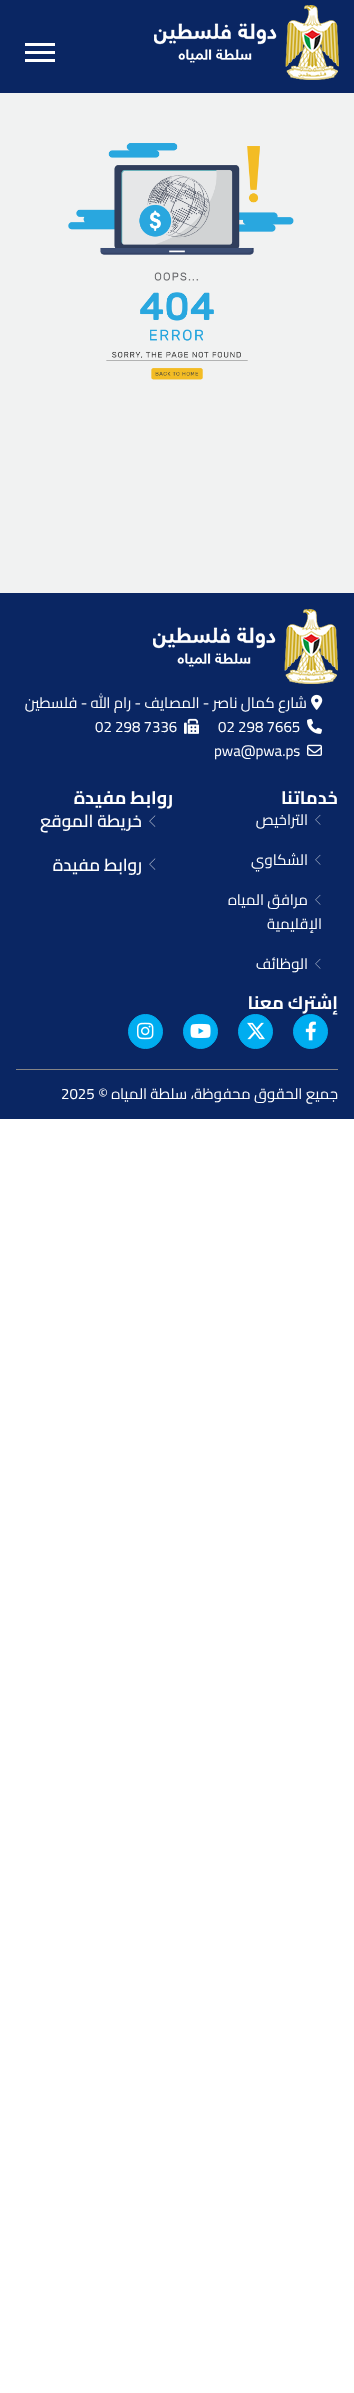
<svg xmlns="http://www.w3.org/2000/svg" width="354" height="2393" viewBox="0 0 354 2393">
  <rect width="100%" height="100%" fill="#fff"/>
  <path d="M0 0h354v93H0z" fill="#0a2663"/>
  <image x="154" y="5" width="185" height="75" href="img/1.png"/>
  <path d="M25 51h30v3H25z" fill="#fff"/>
  <path d="M25 43h30v3H25z" fill="#fff"/>
  <path d="M25 59h30v3H25z" fill="#fff"/>
  <path d="M0 93h354v500H0z" fill="#f1f2f2"/>
  <image x="68" y="143" width="226" height="237" href="img/2.png"/>
  <path d="M0 593h354v526H0z" fill="#0a2663"/>
  <image x="153" y="609" width="185" height="75" href="img/1.png"/>
  <image x="311" y="694" width="12" height="16" href="img/3.png"/>
  <image x="307" y="718" width="15" height="16" href="img/4.png"/>
  <image x="184" y="718" width="15" height="16" href="img/5.png"/>
  <image x="307" y="744" width="15" height="12" href="img/6.png"/>
  <image x="315" y="814" width="6" height="11" href="img/7.png"/>
  <image x="315" y="854" width="6" height="11" href="img/7.png"/>
  <image x="315" y="894" width="6" height="11" href="img/7.png"/>
  <image x="315" y="958" width="6" height="11" href="img/7.png"/>
  <image x="149" y="815" width="7" height="12" href="img/8.png"/>
  <image x="149" y="858" width="7" height="12" href="img/8.png"/>
  <circle cx="310.5" cy="1031.5" r="17" fill="#00adf0" stroke="#00adf0"/>
  <image x="305" y="1021" width="11" height="20" href="img/9.png"/>
  <circle cx="255.5" cy="1031.5" r="17" fill="#00adf0" stroke="#00adf0"/>
  <image x="247" y="1022" width="18" height="18" href="img/10.png"/>
  <circle cx="200.5" cy="1031.5" r="17" fill="#00adf0" stroke="#00adf0"/>
  <image x="190" y="1023" width="21" height="15" href="img/11.png"/>
  <circle cx="145.5" cy="1031.5" r="17" fill="#00adf0" stroke="#00adf0"/>
  <image x="137" y="1022" width="17" height="18" href="img/12.png"/>
  <path d="M16 1069h322v1H16z" fill="#858486"/>
  <text x="307" y="708" font-family="Cairo" font-size="15" direction="rtl" fill="#fff">شارع كمال ناصر - المصايف - رام الله - فلسطين</text>
  <g font-family="Cairo" font-size="15" fill="#fff">
    <text x="218" y="732">02 298 7665</text>
    <text x="95" y="732">02 298 7336</text>
    <text x="214" y="756">pwa@pwa.ps</text>
  </g>
  <text x="338" y="804" font-family="Cairo" font-size="18" font-weight="bold" direction="rtl" fill="#fff">خدماتنا</text>
  <g font-family="Cairo" font-size="15" direction="rtl" fill="#fff">
    <text x="308" y="825">التراخيص</text>
    <text x="308" y="865">الشكاوي</text>
    <text x="308" y="905">مرافق المياه</text>
    <text x="322" y="929">الإقليمية</text>
    <text x="308" y="969">الوظائف</text>
  </g>
  <text x="173" y="804" font-family="Cairo" font-size="18" font-weight="bold" direction="rtl" fill="#fff">روابط مفيدة</text>
  <g font-family="Cairo" font-size="17.25" font-weight="600" direction="rtl" fill="#fff">
    <text x="142" y="827">خريطة الموقع</text>
    <text x="142" y="871">روابط مفيدة</text>
  </g>
  <text x="338" y="1009" font-family="Cairo" font-size="18" font-weight="bold" direction="rtl" fill="#fff">إشترك معنا</text>
  <text x="338" y="1099" font-family="Cairo" font-size="15" direction="rtl" fill="#fff">جميع الحقوق محفوظة، سلطة المياه ©</text>
  <text x="61" y="1099" font-family="Cairo" font-size="15" fill="#fff">2025</text>
</svg>
